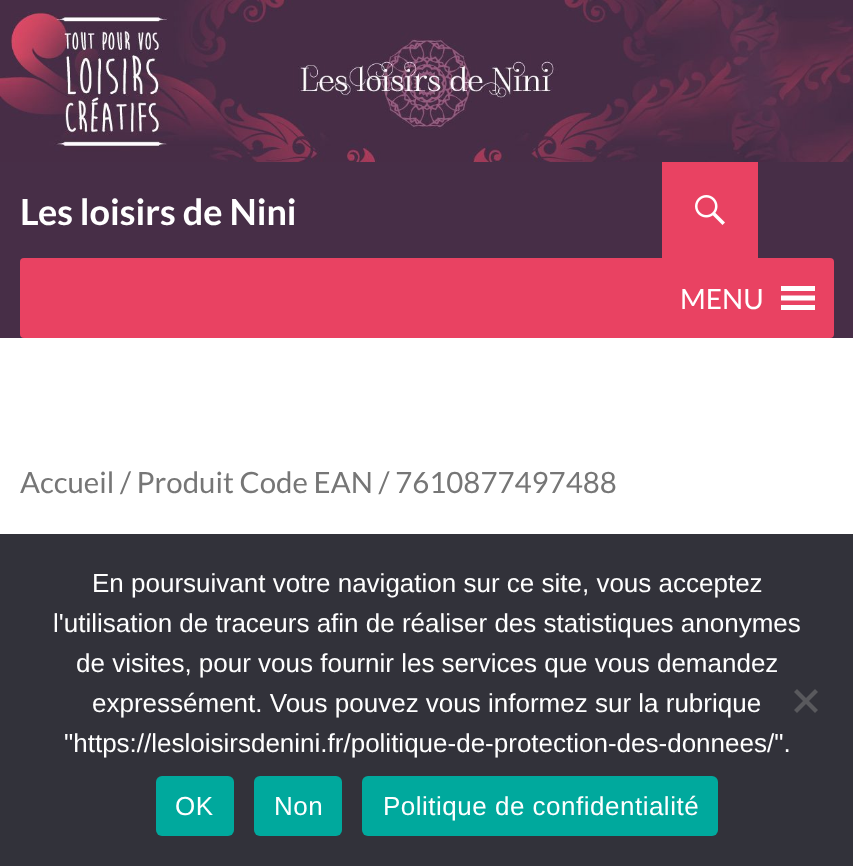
<svg xmlns="http://www.w3.org/2000/svg" width="853" height="866" viewBox="0 0 853 866">
  <rect width="100%" height="100%" fill="#fff"/>
  <image x="0" y="0" width="853" height="162" href="img/1.png"/>
  <path d="M0 162h853v176H0z" fill="#472e47"/>
  <path d="M662 162h96v96H662z" fill="#e94262"/>
  <image x="695" y="195" width="30" height="30" href="img/2.png"/>
  <rect x="20" y="258" width="814" height="80" rx="4" fill="#e94262"/>
  <path d="M781 310H815V305H781ZM781 286V291H815V286ZM781 300.5H815V295.5H781Z" fill="#fff"/>
  <path d="M0 534h853v332H0z" fill="#32323a"/>
  <path d="M815 689L818 692L797 713L794 710Z" fill="#59595d"/>
  <path d="M794 692L797 689L818 710L815 713Z" fill="#59595d"/>
  <rect x="156" y="776" width="78" height="60" rx="6" fill="#00a99d"/>
  <rect x="254" y="776" width="88" height="60" rx="6" fill="#00a99d"/>
  <rect x="362" y="776" width="356" height="60" rx="6" fill="#00a99d"/>
  <text x="20" y="225" font-family="Lato" font-size="36" font-weight="bold" fill="#fff">Les loisirs de Nini</text>
  <text x="680" y="309" font-family="Lato" font-size="28" fill="#fff">MENU</text>
  <text x="20" y="493" font-family="Lato" font-size="29.4" fill="#767676">Accueil / Produit Code EAN / 7610877497488</text>
  <g font-family="Liberation Sans" font-size="26" fill="#fff">
    <text x="92" y="592">En poursuivant votre navigation sur ce site, vous acceptez</text>
    <text x="53" y="632">l'utilisation de traceurs afin de réaliser des statistiques anonymes</text>
    <text x="76" y="672">de visites, pour vous fournir les services que vous demandez</text>
    <text x="92" y="712">expressément. Vous pouvez vous informez sur la rubrique</text>
    <text x="64" y="752">"https://lesloisirsdenini.fr/politique-de-protection-des-donnees/".</text>
  </g>
  <g font-family="Liberation Sans" font-size="26" letter-spacing="0.5" fill="#fff">
    <text x="175" y="815">OK</text>
    <text x="274" y="815">Non</text>
    <text x="383" y="815">Politique de confidentialité</text>
  </g>
</svg>
